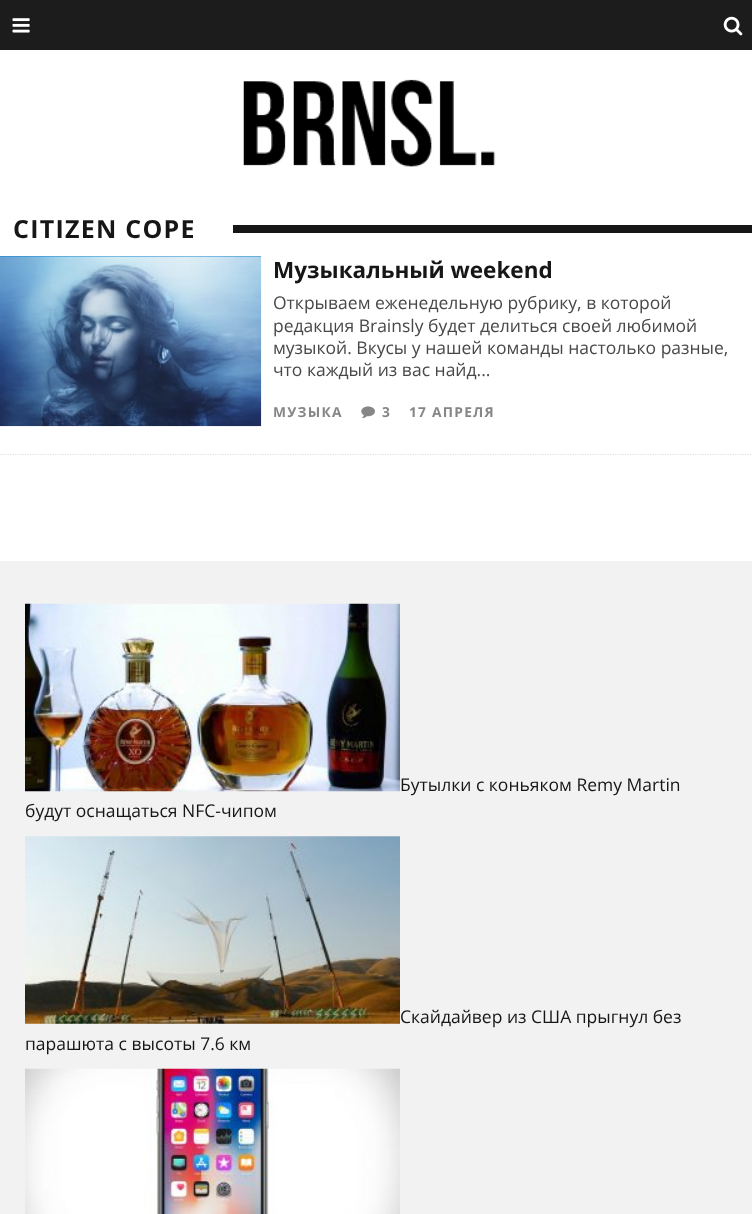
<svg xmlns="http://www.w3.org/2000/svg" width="752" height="1214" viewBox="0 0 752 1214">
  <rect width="100%" height="100%" fill="#fff"/>
  <path d="M0 0h752v50H0z" fill="#1c1c1c"/>
  <image x="12" y="18" width="18" height="15" href="img/1.png"/>
  <image x="723" y="16" width="20" height="20" href="img/2.png"/>
  <image x="243" y="79" width="253" height="88" href="img/3.png"/>
  <path d="M233 225h519v8H233z" fill="#161616"/>
  <path d="M0 454.5H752.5" fill="none" stroke="#ddd" stroke-width="1.2" stroke-dasharray="1.25 1.25"/>
  <path d="M0 256h261v1H0z" fill="#007fcc"/>
  <image x="0" y="256" width="262" height="171" href="img/4.png"/>
  <image x="361" y="406" width="14" height="13" href="img/5.png"/>
  <path d="M0 561h752v653H0z" fill="#f2f2f2"/>
  <image x="25" y="603" width="375" height="189" href="img/6.png"/>
  <image x="25" y="836" width="375" height="188" href="img/7.png"/>
  <image x="25" y="1068" width="375" height="146" href="img/8.png"/>
  <text x="13" y="238" font-family="Open Sans" font-size="25" font-weight="bold" letter-spacing="1.25" fill="#161616">CITIZEN COPE</text>
  <text x="273" y="278" font-family="Open Sans" font-size="22.5" font-weight="bold" fill="#161616">Музыкальный weekend</text>
  <g font-family="Open Sans" font-size="17.5" fill="#484848">
    <text x="273" y="309">Открываем еженедельную рубрику, в которой</text>
    <text x="273" y="332">редакция Brainsly будет делиться своей любимой</text>
    <text x="273" y="354">музыкой. Вкусы у нашей команды настолько разные,</text>
    <text x="273" y="376">что каждый из вас найд...</text>
  </g>
  <g font-family="Open Sans" font-size="13.75" font-weight="bold" letter-spacing="1.25" fill="#868686">
    <text x="273" y="417">МУЗЫКА</text>
    <text x="382" y="417">3</text>
    <text x="409" y="417">17 АПРЕЛЯ</text>
  </g>
  <g font-family="Open Sans" font-size="17.5" fill="#161616">
    <text x="400" y="791">Бутылки с коньяком Remy Martin</text>
    <text x="25" y="817">будут оснащаться NFC-чипом</text>
    <text x="400" y="1023">Скайдайвер из США прыгнул без</text>
    <text x="25" y="1050">парашюта с высоты 7.6 км</text>
  </g>
</svg>
